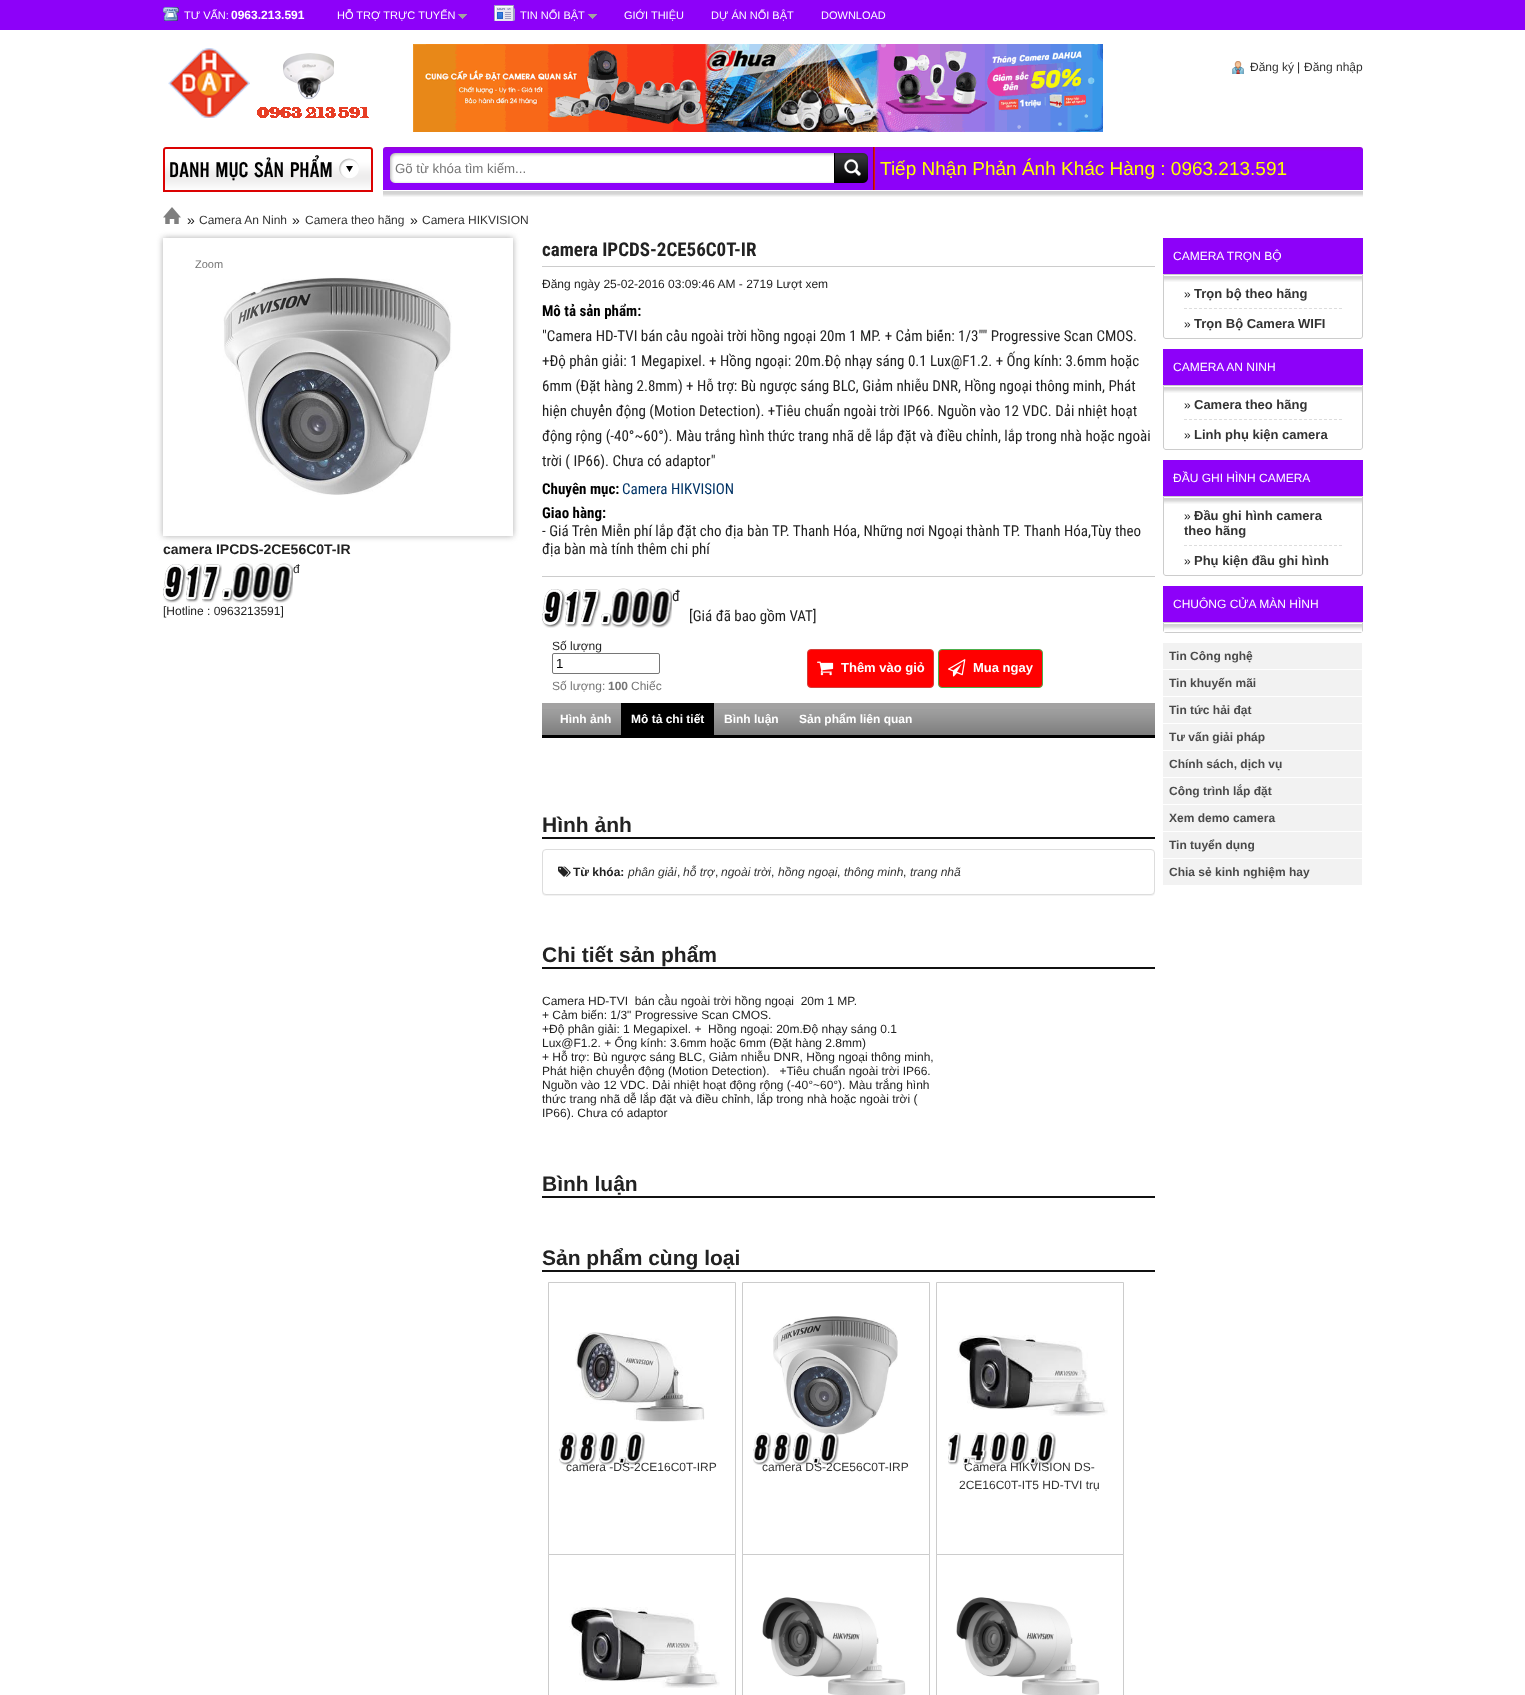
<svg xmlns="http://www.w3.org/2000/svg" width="1525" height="1695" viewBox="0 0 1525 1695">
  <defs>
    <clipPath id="clip1"><path d="M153 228H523V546H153ZM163 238H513V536H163Z" clip-rule="evenodd"/></clipPath>
  </defs>
  <rect width="100%" height="100%" fill="#fff"/>
  <path d="M0 0h1525v30H0z" fill="#8d01f9"/>
  <image x="163" y="7" width="16" height="14" href="img/1.png"/>
  <image x="458" y="14" width="9" height="5" href="img/2.png"/>
  <image x="494" y="5" width="21" height="16" href="img/3.png"/>
  <image x="588" y="14" width="9" height="5" href="img/2.png"/>
  <image x="168" y="48" width="201" height="70" href="img/4.png"/>
  <image x="413" y="44" width="690" height="88" href="img/5.png"/>
  <image x="1232" y="61" width="12" height="13" href="img/6.png"/>
  <image x="163" y="147" width="210" height="45" href="img/7.png"/>
  <image x="383" y="147" width="980" height="50" href="img/8.png"/>
  <image x="390" y="153" width="478" height="30" href="img/9.png"/>
  <path d="M874 147h1v43H874z" fill="#e41111"/>
  <path d="M873 147h1v43H873z" fill="#a80d0d"/>
  <image x="163" y="207" width="18" height="17" href="img/10.png"/>
  <g clip-path="url(#clip1)">
    <path d="M163 238h350v298H163z" fill="#acacac" filter="blur(3px)"/>
  </g>
  <image x="223" y="277" width="229" height="218" href="img/11.png"/>
  <image x="163" y="564" width="23" height="39" href="img/12.png"/>
  <image x="186" y="564" width="16" height="39" href="img/13.png"/>
  <image x="202" y="564" width="20" height="39" href="img/14.png"/>
  <image x="233" y="563" width="20" height="40" href="img/15.png"/>
  <image x="253" y="563" width="20" height="40" href="img/15.png"/>
  <image x="273" y="563" width="20" height="40" href="img/15.png"/>
  <image x="222" y="588" width="11" height="14" href="img/16.png"/>
  <path d="M542 266h613v1H542z" fill="#ccc"/>
  <path d="M542 576h613v1H542z" fill="#ccc"/>
  <image x="542" y="589" width="23" height="39" href="img/12.png"/>
  <image x="565" y="589" width="16" height="39" href="img/13.png"/>
  <image x="581" y="589" width="20" height="39" href="img/14.png"/>
  <image x="612" y="588" width="20" height="40" href="img/15.png"/>
  <image x="632" y="588" width="20" height="40" href="img/15.png"/>
  <image x="652" y="588" width="20" height="40" href="img/15.png"/>
  <image x="601" y="613" width="11" height="14" href="img/16.png"/>
  <rect x="552.5" y="653.5" width="107" height="20" rx="1.5" fill="none" stroke="#767676"/>
  <rect x="807.5" y="649.5" width="126" height="38" rx="3.5" fill="#f00" stroke="#d43f3a"/>
  <image x="817" y="661" width="17" height="15" href="img/17.png"/>
  <rect x="938.5" y="649.5" width="104" height="38" rx="3.5" fill="#f00" stroke="#4cae4c"/>
  <image x="948" y="659" width="18" height="18" href="img/18.png"/>
  <path d="M542 703h613v6H542z" fill="#a3a2a2"/>
  <image x="542" y="709" width="613" height="26" href="img/19.png"/>
  <path d="M542 735h613v3H542z" fill="#000"/>
  <path d="M621 703h93v32H621z" fill="#000"/>
  <path d="M542 837h613v2H542z" fill="#111"/>
  <rect x="542" y="850" width="613" height="46" rx="4" fill="#0000000d" filter="blur(0.5px)"/>
  <rect x="542.5" y="849.5" width="612" height="45" rx="3.5" fill="#fff" stroke="#ddd"/>
  <image x="558" y="866" width="13" height="11" href="img/20.png"/>
  <path d="M542 967h613v2H542z" fill="#111"/>
  <path d="M542 1196h613v2H542z" fill="#111"/>
  <path d="M542 1270h613v2H542z" fill="#111"/>
  <path d="M548.5 1282.5h187v272H548.5z" fill="none" stroke="#ccc"/>
  <image x="575" y="1332" width="130" height="90" href="img/21.png"/>
  <path d="M742.5 1282.5h187v272H742.5z" fill="none" stroke="#ccc"/>
  <image x="773" y="1316" width="125" height="119" href="img/27.png"/>
  <path d="M936.5 1282.5h187v272H936.5z" fill="none" stroke="#ccc"/>
  <image x="957" y="1335" width="151" height="81" href="img/33.png"/>
  <image x="948" y="1432" width="13" height="33" href="img/34.png"/>
  <path d="M548.5 1554.5h187v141H548.5z" fill="none" stroke="#ccc"/>
  <image x="569" y="1607" width="151" height="81" href="img/41.png"/>
  <path d="M742.5 1554.5h187v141H742.5z" fill="none" stroke="#ccc"/>
  <image x="762" y="1597" width="144" height="98" href="img/42.png"/>
  <path d="M936.5 1554.5h187v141H936.5z" fill="none" stroke="#ccc"/>
  <image x="956" y="1597" width="144" height="98" href="img/42.png"/>
  <path d="M1163 238h200v36H1163z" fill="#8d01f9"/>
  <path d="M1163.5 274.5H1362.5V336C1362.5 337.5 1361.5 338.5 1360 338.5H1166C1164.5 338.5 1163.5 337.5 1163.5 336Z" fill="none" stroke="#ccc"/>
  <image x="1164" y="276" width="198" height="6" href="img/43.png"/>
  <path d="M1184 308.5H1342" fill="none" stroke="#ddd" stroke-dasharray="3 2"/>
  <path d="M1163 349h200v36H1163z" fill="#8d01f9"/>
  <path d="M1163.5 385.5H1362.5V447C1362.5 448.5 1361.5 449.5 1360 449.5H1166C1164.5 449.5 1163.5 448.5 1163.5 447Z" fill="none" stroke="#ccc"/>
  <image x="1164" y="387" width="198" height="6" href="img/43.png"/>
  <path d="M1184 419.5H1342" fill="none" stroke="#ddd" stroke-dasharray="3 2"/>
  <path d="M1163 460h200v36H1163z" fill="#8d01f9"/>
  <path d="M1163.5 496.5H1362.5V573C1362.5 574.5 1361.5 575.5 1360 575.5H1166C1164.5 575.5 1163.5 574.5 1163.5 573Z" fill="none" stroke="#ccc"/>
  <image x="1164" y="498" width="198" height="6" href="img/43.png"/>
  <path d="M1184 545.5H1342" fill="none" stroke="#ddd" stroke-dasharray="3 2"/>
  <path d="M1163 586h200v36H1163z" fill="#8d01f9"/>
  <path d="M1163.5 622.5H1362.5V630C1362.5 631.5 1361.5 632.5 1360 632.5H1166C1164.5 632.5 1163.5 631.5 1163.5 630Z" fill="none" stroke="#ccc"/>
  <image x="1164" y="624" width="198" height="8" href="img/44.png"/>
  <path d="M1163 643h199v26H1163z" fill="#f2f2f2"/>
  <path d="M1163 670h199v26H1163z" fill="#f2f2f2"/>
  <path d="M1163 697h199v26H1163z" fill="#f2f2f2"/>
  <path d="M1163 724h199v26H1163z" fill="#f2f2f2"/>
  <path d="M1163 751h199v26H1163z" fill="#f2f2f2"/>
  <path d="M1163 778h199v26H1163z" fill="#f2f2f2"/>
  <path d="M1163 805h199v26H1163z" fill="#f2f2f2"/>
  <path d="M1163 832h199v26H1163z" fill="#f2f2f2"/>
  <path d="M1163 859h199v26H1163z" fill="#f2f2f2"/>
  <text x="184" y="19" font-family="Liberation Sans" font-size="11" fill="#fff">TƯ VẤN:</text>
  <text x="231" y="19" font-family="Liberation Sans" font-size="12" font-weight="bold" fill="#fff">0963.213.591</text>
  <g font-family="Liberation Sans" font-size="11" fill="#fff">
    <text x="337" y="19">HỖ TRỢ TRỰC TUYẾN</text>
    <text x="520" y="19">TIN NỔI BẬT</text>
    <text x="624" y="19">GIỚI THIỆU</text>
    <text x="711" y="19">DỰ ÁN NỔI BẬT</text>
    <text x="821" y="19">DOWNLOAD</text>
  </g>
  <text x="1250" y="71" font-family="Liberation Sans" font-size="12" fill="#333">Đăng ký</text>
  <text x="1297" y="71" font-family="Liberation Sans" font-size="12" fill="#222">|</text>
  <text x="1304" y="71" font-family="Liberation Sans" font-size="12" fill="#333">Đăng nhập</text>
  <text x="395" y="173" font-family="Liberation Sans" font-size="13.25" fill="#757575">Gõ từ khóa tìm kiếm...</text>
  <text x="880" y="175" font-family="Liberation Sans" font-size="19" fill="#ff0">Tiếp Nhận Phản Ánh Khác Hàng : 0963.213.591</text>
  <text x="187" y="225" font-family="Liberation Sans" font-size="14" fill="#222">»</text>
  <text x="199" y="224" font-family="Liberation Sans" font-size="12" fill="#333">Camera An Ninh</text>
  <text x="292" y="225" font-family="Liberation Sans" font-size="14" fill="#222">»</text>
  <text x="305" y="224" font-family="Liberation Sans" font-size="12" fill="#333">Camera theo hãng</text>
  <text x="410" y="225" font-family="Liberation Sans" font-size="14" fill="#222">»</text>
  <text x="422" y="224" font-family="Liberation Sans" font-size="12" fill="#333">Camera HIKVISION</text>
  <text x="195" y="268" font-family="Liberation Sans" font-size="11" fill="#757575">Zoom</text>
  <text x="163" y="554" font-family="Liberation Sans" font-size="14" font-weight="bold" fill="#222">camera IPCDS-2CE56C0T-IR</text>
  <g font-family="Liberation Sans" font-size="12" fill="#222">
    <text x="293" y="573">đ</text>
    <text x="163" y="615">[Hotline : 0963213591]</text>
  </g>
  <text x="542" y="256" font-family="Roboto Condensed" font-size="19" font-weight="bold" fill="#222">camera IPCDS-2CE56C0T-IR</text>
  <text x="542" y="288" font-family="Liberation Sans" font-size="12" fill="#222">Đăng ngày 25-02-2016 03:09:46 AM - 2719 Lượt xem</text>
  <text x="542" y="316" font-family="Roboto Condensed" font-size="15" font-weight="bold" fill="#000">Mô tả sản phẩm:</text>
  <g font-family="Roboto Condensed" font-size="15" fill="#222">
    <text x="542" y="341">"Camera HD-TVI bán cầu ngoài trời hồng ngoại 20m 1 MP. + Cảm biến: 1/3"" Progressive Scan CMOS.</text>
    <text x="542" y="366">+Độ phân giải: 1 Megapixel. + Hồng ngoại: 20m.Độ nhạy sáng 0.1 Lux@F1.2. + Ống kính: 3.6mm hoặc</text>
    <text x="542" y="391">6mm (Đặt hàng 2.8mm) + Hỗ trợ: Bù ngược sáng BLC, Giảm nhiễu DNR, Hồng ngoại thông minh, Phát</text>
    <text x="542" y="416">hiện chuyển động (Motion Detection). +Tiêu chuẩn ngoài trời IP66. Nguồn vào 12 VDC. Dải nhiệt hoạt</text>
    <text x="542" y="441">động rộng (-40°~60°). Màu trắng hình thức trang nhã dễ lắp đặt và điều chỉnh, lắp trong nhà hoặc ngoài</text>
    <text x="542" y="466">trời ( IP66). Chưa có adaptor"</text>
  </g>
  <text x="542" y="494" font-family="Roboto Condensed" font-size="15" font-weight="bold" fill="#000">Chuyên mục:</text>
  <text x="622" y="494" font-family="Roboto Condensed" font-size="15" fill="#036">Camera HIKVISION</text>
  <text x="542" y="518" font-family="Roboto Condensed" font-size="15" font-weight="bold" fill="#000">Giao hàng:</text>
  <g font-family="Roboto Condensed" font-size="15" fill="#222">
    <text x="542" y="536">- Giá Trên Miễn phí lắp đặt cho địa bàn TP. Thanh Hóa, Những nơi Ngoại thành TP. Thanh Hóa,Tùy theo</text>
    <text x="542" y="554">địa bàn mà tính thêm chi phí</text>
    <text x="672" y="601">đ</text>
    <text x="689" y="621">[Giá đã bao gồm VAT]</text>
  </g>
  <text x="552" y="650" font-family="Liberation Sans" font-size="12" fill="#222">Số lượng</text>
  <text x="556" y="668" font-family="Liberation Sans" font-size="13.25" fill="#000">1</text>
  <text x="552" y="690" font-family="Liberation Sans" font-size="12" fill="#757575">Số lượng:</text>
  <text x="608" y="690" font-family="Liberation Sans" font-size="12" font-weight="bold" fill="#757575">100</text>
  <text x="631" y="690" font-family="Liberation Sans" font-size="12" fill="#757575">Chiếc</text>
  <g font-family="Liberation Sans" font-size="13" font-weight="bold" fill="#fff">
    <text x="841" y="672">Thêm vào giỏ</text>
    <text x="973" y="672">Mua ngay</text>
  </g>
  <g font-family="Liberation Sans" font-size="12" font-weight="bold" fill="#fff">
    <text x="560" y="723">Hình ảnh</text>
    <text x="631" y="723">Mô tả chi tiết</text>
    <text x="724" y="723">Bình luận</text>
    <text x="799" y="723">Sản phẩm liên quan</text>
  </g>
  <text x="542" y="832" font-family="Liberation Sans" font-size="21" font-weight="bold" fill="#222">Hình ảnh</text>
  <text x="573" y="876" font-family="Liberation Sans" font-size="12" font-weight="bold" fill="#222">Từ khóa:</text>
  <text x="628" y="876" font-family="Liberation Sans" font-size="12" font-style="italic" fill="#333">phân giải</text>
  <text x="677" y="876" font-family="Liberation Sans" font-size="12" fill="#222">,</text>
  <g font-family="Liberation Sans" font-size="12" font-style="italic" fill="#333">
    <text x="683" y="876">hỗ trợ</text>
    <text x="721" y="876">ngoài trời</text>
    <text x="778" y="876">hồng ngoại</text>
    <text x="844" y="876">thông minh</text>
    <text x="910" y="876">trang nhã</text>
  </g>
  <g font-family="Liberation Sans" font-size="12" fill="#222">
    <text x="715" y="876">,</text>
    <text x="771" y="876">,</text>
    <text x="837" y="876">,</text>
    <text x="903" y="876">,</text>
  </g>
  <text x="542" y="962" font-family="Liberation Sans" font-size="21" font-weight="bold" fill="#222">Chi tiết sản phẩm</text>
  <g font-family="Liberation Sans" font-size="12" fill="#222">
    <text x="542" y="1005" xml:space="preserve">Camera HD-TVI  bán cầu ngoài trời hồng ngoại  20m 1 MP.</text>
    <text x="542" y="1019">+ Cảm biến: 1/3" Progressive Scan CMOS.</text>
    <text x="542" y="1033" xml:space="preserve">+Độ phân giải: 1 Megapixel. +  Hồng ngoại: 20m.Độ nhạy sáng 0.1</text>
    <text x="542" y="1047">Lux@F1.2. + Ống kính: 3.6mm hoặc 6mm (Đặt hàng 2.8mm)</text>
    <text x="542" y="1061">+ Hỗ trợ: Bù ngược sáng BLC, Giảm nhiễu DNR, Hồng ngoại thông minh,</text>
    <text x="542" y="1075" xml:space="preserve">Phát hiện chuyển động (Motion Detection).   +Tiêu chuẩn ngoài trời IP66.</text>
    <text x="542" y="1089">Nguồn vào 12 VDC. Dải nhiệt hoạt động rộng (-40°~60°). Màu trắng hình</text>
    <text x="542" y="1103">thức trang nhã dễ lắp đặt và điều chỉnh, lắp trong nhà hoặc ngoài trời (</text>
    <text x="542" y="1117">IP66). Chưa có adaptor</text>
  </g>
  <g font-family="Liberation Sans" font-size="21" font-weight="bold" fill="#222">
    <text x="542" y="1191">Bình luận</text>
    <text x="542" y="1265">Sản phẩm cùng loại</text>
  </g>
  <text x="566" y="1471" font-family="Liberation Sans" font-size="12" fill="#333">camera -DS-2CE16C0T-IRP</text>
  <image x="626" y="1432" width="19" height="34" href="img/26.png"/>
  <image x="619" y="1457" width="7" height="9" href="img/25.png"/>
  <image x="599" y="1432" width="19" height="34" href="img/24.png"/>
  <image x="579" y="1432" width="18" height="33" href="img/23.png"/>
  <image x="559" y="1432" width="18" height="33" href="img/22.png"/>
  <text x="762" y="1471" font-family="Liberation Sans" font-size="12" fill="#333">camera DS-2CE56C0T-IRP</text>
  <image x="820" y="1432" width="19" height="34" href="img/32.png"/>
  <image x="813" y="1457" width="7" height="9" href="img/31.png"/>
  <image x="793" y="1432" width="19" height="34" href="img/30.png"/>
  <image x="773" y="1432" width="18" height="33" href="img/29.png"/>
  <image x="753" y="1432" width="18" height="33" href="img/28.png"/>
  <text x="964" y="1471" font-family="Liberation Sans" font-size="12" fill="#333">Camera HIKVISION DS-</text>
  <image x="1037" y="1432" width="19" height="34" href="img/40.png"/>
  <image x="1030" y="1457" width="7" height="9" href="img/39.png"/>
  <image x="1010" y="1432" width="19" height="34" href="img/38.png"/>
  <image x="990" y="1432" width="19" height="34" href="img/37.png"/>
  <image x="970" y="1432" width="18" height="33" href="img/36.png"/>
  <image x="963" y="1457" width="7" height="9" href="img/35.png"/>
  <text x="959" y="1489" font-family="Liberation Sans" font-size="12" fill="#333">2CE16C0T-IT5 HD-TVI trụ</text>
  <text x="1173" y="260" font-family="Liberation Sans" font-size="12" fill="#fff">CAMERA TRỌN BỘ</text>
  <text x="1184" y="298" font-family="Liberation Sans" font-size="12" fill="#222">»</text>
  <text x="1194" y="298" font-family="Liberation Sans" font-size="13" font-weight="bold" fill="#333">Trọn bộ theo hãng</text>
  <text x="1184" y="328" font-family="Liberation Sans" font-size="12" fill="#222">»</text>
  <text x="1194" y="328" font-family="Liberation Sans" font-size="13" font-weight="bold" fill="#333">Trọn Bộ Camera WIFI</text>
  <text x="1173" y="371" font-family="Liberation Sans" font-size="12" fill="#fff">CAMERA AN NINH</text>
  <text x="1184" y="409" font-family="Liberation Sans" font-size="12" fill="#222">»</text>
  <text x="1194" y="409" font-family="Liberation Sans" font-size="13" font-weight="bold" fill="#333">Camera theo hãng</text>
  <text x="1184" y="439" font-family="Liberation Sans" font-size="12" fill="#222">»</text>
  <text x="1194" y="439" font-family="Liberation Sans" font-size="13" font-weight="bold" fill="#333">Linh phụ kiện camera</text>
  <text x="1173" y="482" font-family="Liberation Sans" font-size="12" fill="#fff">ĐẦU GHI HÌNH CAMERA</text>
  <text x="1184" y="520" font-family="Liberation Sans" font-size="12" fill="#222">»</text>
  <g font-family="Liberation Sans" font-size="13" font-weight="bold" fill="#333">
    <text x="1194" y="520">Đầu ghi hình camera</text>
    <text x="1184" y="535">theo hãng</text>
  </g>
  <text x="1184" y="565" font-family="Liberation Sans" font-size="12" fill="#222">»</text>
  <text x="1194" y="565" font-family="Liberation Sans" font-size="13" font-weight="bold" fill="#333">Phụ kiện đầu ghi hình</text>
  <text x="1173" y="608" font-family="Liberation Sans" font-size="12" fill="#fff">CHUÔNG CỬA MÀN HÌNH</text>
  <g font-family="Liberation Sans" font-size="12" font-weight="bold" fill="#4a4a4a">
    <text x="1169" y="660">Tin Công nghệ</text>
    <text x="1169" y="687">Tin khuyến mãi</text>
    <text x="1169" y="714">Tin tức hải đạt</text>
    <text x="1169" y="741">Tư vấn giải pháp</text>
    <text x="1169" y="768">Chính sách, dịch vụ</text>
    <text x="1169" y="795">Công trình lắp đặt</text>
    <text x="1169" y="822">Xem demo camera</text>
    <text x="1169" y="849">Tin tuyển dụng</text>
    <text x="1169" y="876">Chia sẻ kinh nghiệm hay</text>
  </g>
</svg>
